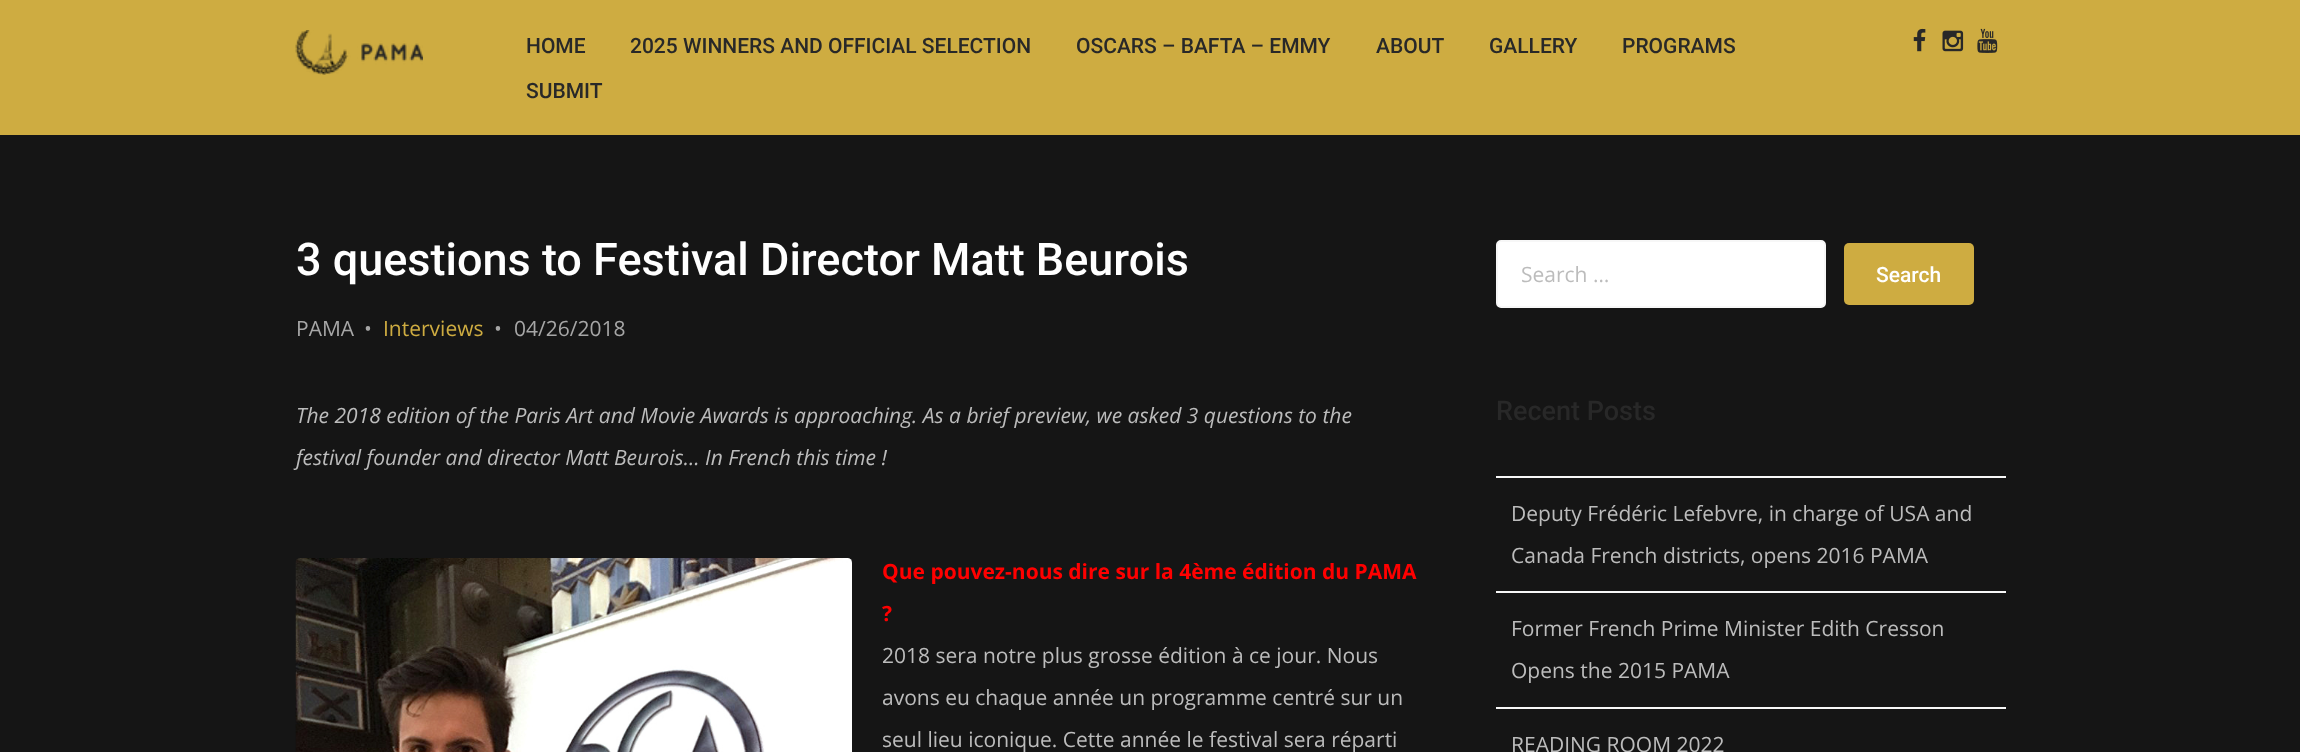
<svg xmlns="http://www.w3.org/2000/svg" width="2300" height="752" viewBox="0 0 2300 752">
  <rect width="100%" height="100%" fill="#151515"/>
  <path d="M0 0h2300v135H0z" fill="#ceac41"/>
  <image x="295" y="30" width="128" height="45" href="img/1.png"/>
  <image x="1913" y="28" width="13" height="24" href="img/2.png"/>
  <image x="1942" y="30" width="22" height="22" href="img/3.png"/>
  <image x="1977" y="28" width="21" height="25" href="img/4.png"/>
  <image x="295" y="558" width="557" height="194" href="img/5.png"/>
  <rect x="1497" y="241" width="328" height="66" rx="4" fill="#fff" stroke="#f7f7f7" stroke-width="2"/>
  <rect x="1844" y="243" width="130" height="62" rx="5" fill="#ceac41"/>
  <path d="M1496 476h510v2H1496z" fill="#f7f7f7"/>
  <path d="M1496 591h510v2H1496z" fill="#f7f7f7"/>
  <path d="M1496 707h510v2H1496z" fill="#f7f7f7"/>
  <g font-family="Roboto" font-size="21" font-weight="500" fill="#282828">
    <text x="526" y="53">HOME</text>
    <text x="630" y="53">2025 WINNERS AND OFFICIAL SELECTION</text>
    <text x="1076" y="53">OSCARS – BAFTA – EMMY</text>
    <text x="1376" y="53">ABOUT</text>
    <text x="1489" y="53">GALLERY</text>
    <text x="1622" y="53">PROGRAMS</text>
    <text x="526" y="98">SUBMIT</text>
  </g>
  <text x="296" y="275" font-family="Roboto" font-size="45" font-weight="500" fill="#fff">3 questions to Festival Director Matt Beurois</text>
  <g font-family="Open Sans" font-size="21" fill="#a6a6a6">
    <text x="296" y="336">PAMA</text>
    <text x="364" y="336">•</text>
  </g>
  <text x="383" y="336" font-family="Open Sans" font-size="21" fill="#ceac41">Interviews</text>
  <g font-family="Open Sans" font-size="21" fill="#a6a6a6">
    <text x="494" y="336">•</text>
    <text x="514" y="336">04/26/2018</text>
  </g>
  <g font-family="Open Sans" font-size="21" font-style="italic" fill="#bcbcbc">
    <text x="296" y="423">The 2018 edition of the Paris Art and Movie Awards is approaching. As a brief preview, we asked 3 questions to the</text>
    <text x="296" y="465">festival founder and director Matt Beurois… In French this time !</text>
  </g>
  <g font-family="Open Sans" font-size="21" font-weight="bold" fill="#f00">
    <text x="882" y="579">Que pouvez-nous dire sur la 4ème édition du PAMA</text>
    <text x="882" y="621">?</text>
  </g>
  <g font-family="Open Sans" font-size="21" fill="#bcbcbc">
    <text x="882" y="663">2018 sera notre plus grosse édition à ce jour. Nous</text>
    <text x="882" y="705">avons eu chaque année un programme centré sur un</text>
    <text x="882" y="747">seul lieu iconique. Cette année le festival sera réparti</text>
    <text x="1521" y="282">Search …</text>
  </g>
  <text x="1876" y="282" font-family="Roboto" font-size="21" font-weight="500" fill="#fff">Search</text>
  <text x="1496" y="420" font-family="Roboto" font-size="27" font-weight="500" fill="#282828">Recent Posts</text>
  <g font-family="Open Sans" font-size="21" fill="#bcbcbc">
    <text x="1511" y="521">Deputy Frédéric Lefebvre, in charge of USA and</text>
    <text x="1511" y="563">Canada French districts, opens 2016 PAMA</text>
    <text x="1511" y="636">Former French Prime Minister Edith Cresson</text>
    <text x="1511" y="678">Opens the 2015 PAMA</text>
    <text x="1511" y="752">READING ROOM 2022</text>
  </g>
</svg>
